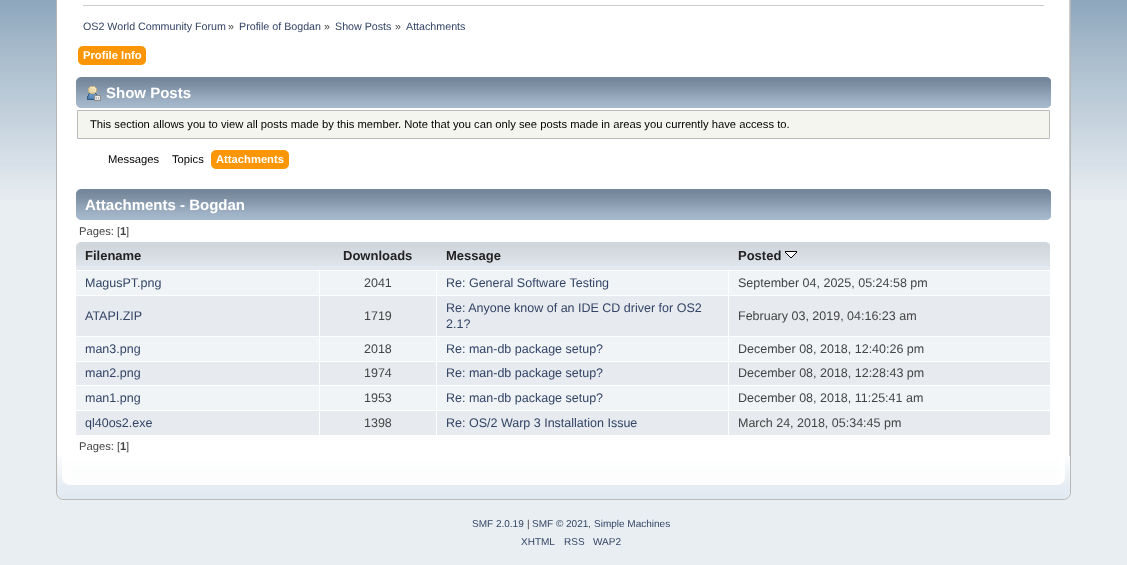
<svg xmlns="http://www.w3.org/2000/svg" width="1127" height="565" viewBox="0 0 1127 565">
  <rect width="100%" height="100%" fill="#e9eef2"/>
  <image x="0" y="0" width="1127" height="200" href="img/1.png"/>
  <path d="M57 0h1012v456H57z" fill="#fff"/>
  <path d="M56 0h1v456H56z" fill="#b7b7b7"/>
  <image x="1069" y="0" width="2" height="456" href="img/2.png"/>
  <path d="M83 5h961v1H83z" fill="#ccc"/>
  <image x="83" y="46" width="63" height="19" href="img/3.png"/>
  <image x="78" y="46" width="5" height="19" href="img/4.png"/>
  <image x="76" y="77" width="970" height="31" href="img/5.png"/>
  <image x="1046" y="77" width="5" height="31" href="img/6.png"/>
  <image x="87" y="86" width="14" height="15" href="img/7.png"/>
  <path d="M77.5 110.5h972v28H77.5z" fill="#f5f5f0" stroke="#bbb"/>
  <image x="216" y="150" width="73" height="19" href="img/8.png"/>
  <image x="211" y="150" width="5" height="19" href="img/9.png"/>
  <image x="76" y="189" width="970" height="31" href="img/5.png"/>
  <image x="1046" y="189" width="5" height="31" href="img/6.png"/>
  <path d="M76 266h974v4H76z" fill="#e3e9ef"/>
  <image x="76" y="242" width="244" height="24" href="img/10.png"/>
  <image x="320" y="242" width="117" height="24" href="img/11.png"/>
  <image x="437" y="242" width="292" height="24" href="img/12.png"/>
  <image x="729" y="242" width="321" height="24" href="img/13.png"/>
  <image x="785" y="251" width="12" height="7" href="img/14.png"/>
  <path d="M76 271h974v24H76z" fill="#f0f4f7"/>
  <path d="M76 296h974v40H76z" fill="#e7eaef"/>
  <path d="M76 337h974v24H76z" fill="#f0f4f7"/>
  <path d="M76 362h974v23H76z" fill="#e7eaef"/>
  <path d="M76 386h974v24H76z" fill="#f0f4f7"/>
  <path d="M76 411h974v24H76z" fill="#e7eaef"/>
  <path d="M319 270h1v166H319z" fill="#fff"/>
  <path d="M436 270h1v166H436z" fill="#fff"/>
  <path d="M728 270h1v166H728z" fill="#fff"/>
  <image x="56" y="456" width="1003" height="44" href="img/15.png"/>
  <image x="1059" y="456" width="12" height="44" href="img/16.png"/>
  <text x="83" y="30" font-family="Liberation Sans" font-size="10.7" fill="#346">OS2 World Community Forum</text>
  <text x="228" y="30" font-family="Liberation Sans" font-size="10.7" fill="#444">»</text>
  <text x="239" y="30" font-family="Liberation Sans" font-size="10.7" fill="#346">Profile of Bogdan</text>
  <text x="324" y="30" font-family="Liberation Sans" font-size="10.7" fill="#444">»</text>
  <text x="335" y="30" font-family="Liberation Sans" font-size="10.7" fill="#346">Show Posts</text>
  <text x="395" y="30" font-family="Liberation Sans" font-size="10.7" fill="#444">»</text>
  <text x="406" y="30" font-family="Liberation Sans" font-size="10.7" fill="#346">Attachments</text>
  <text x="83" y="59" font-family="Liberation Sans" font-size="11.23" font-weight="bold" fill="#fff">Profile Info</text>
  <text x="106" y="98" font-family="Liberation Sans" font-size="15" font-weight="bold" fill="#fff">Show Posts</text>
  <g font-family="Liberation Sans" font-size="11.23" fill="#000">
    <text x="90" y="128">This section allows you to view all posts made by this member. Note that you can only see posts made in areas you currently have access to.</text>
    <text x="108" y="163">Messages</text>
    <text x="172" y="163">Topics</text>
  </g>
  <text x="216" y="163" font-family="Liberation Sans" font-size="11.23" font-weight="bold" fill="#fff">Attachments</text>
  <text x="85" y="210" font-family="Liberation Sans" font-size="15" font-weight="bold" fill="#fff">Attachments - Bogdan</text>
  <text x="79" y="235" font-family="Liberation Sans" font-size="11.23" fill="#444">Pages: [</text>
  <text x="120" y="235" font-family="Liberation Sans" font-size="11.23" font-weight="bold" fill="#444">1</text>
  <text x="126" y="235" font-family="Liberation Sans" font-size="11.23" fill="#444">]</text>
  <g font-family="Liberation Sans" font-size="13" font-weight="bold" fill="#222">
    <text x="85" y="260">Filename</text>
    <text x="343" y="260">Downloads</text>
    <text x="446" y="260">Message</text>
    <text x="738" y="260">Posted</text>
  </g>
  <text x="85" y="287" font-family="Liberation Sans" font-size="12.5" fill="#346">MagusPT.png</text>
  <text x="364" y="287" font-family="Liberation Sans" font-size="12.5" fill="#444">2041</text>
  <text x="446" y="287" font-family="Liberation Sans" font-size="12.5" fill="#346">Re: General Software Testing</text>
  <text x="738" y="287" font-family="Liberation Sans" font-size="12.5" fill="#444">September 04, 2025, 05:24:58 pm</text>
  <text x="85" y="320" font-family="Liberation Sans" font-size="12.5" fill="#346">ATAPI.ZIP</text>
  <text x="364" y="320" font-family="Liberation Sans" font-size="12.5" fill="#444">1719</text>
  <g font-family="Liberation Sans" font-size="12.5" fill="#346">
    <text x="446" y="312">Re: Anyone know of an IDE CD driver for OS2</text>
    <text x="446" y="328">2.1?</text>
  </g>
  <text x="738" y="320" font-family="Liberation Sans" font-size="12.5" fill="#444">February 03, 2019, 04:16:23 am</text>
  <text x="85" y="353" font-family="Liberation Sans" font-size="12.5" fill="#346">man3.png</text>
  <text x="364" y="353" font-family="Liberation Sans" font-size="12.5" fill="#444">2018</text>
  <text x="446" y="353" font-family="Liberation Sans" font-size="12.5" fill="#346">Re: man-db package setup?</text>
  <text x="738" y="353" font-family="Liberation Sans" font-size="12.5" fill="#444">December 08, 2018, 12:40:26 pm</text>
  <text x="85" y="377" font-family="Liberation Sans" font-size="12.5" fill="#346">man2.png</text>
  <text x="364" y="377" font-family="Liberation Sans" font-size="12.5" fill="#444">1974</text>
  <text x="446" y="377" font-family="Liberation Sans" font-size="12.5" fill="#346">Re: man-db package setup?</text>
  <text x="738" y="377" font-family="Liberation Sans" font-size="12.5" fill="#444">December 08, 2018, 12:28:43 pm</text>
  <text x="85" y="402" font-family="Liberation Sans" font-size="12.5" fill="#346">man1.png</text>
  <text x="364" y="402" font-family="Liberation Sans" font-size="12.5" fill="#444">1953</text>
  <text x="446" y="402" font-family="Liberation Sans" font-size="12.5" fill="#346">Re: man-db package setup?</text>
  <text x="738" y="402" font-family="Liberation Sans" font-size="12.5" fill="#444">December 08, 2018, 11:25:41 am</text>
  <text x="85" y="427" font-family="Liberation Sans" font-size="12.5" fill="#346">ql40os2.exe</text>
  <text x="364" y="427" font-family="Liberation Sans" font-size="12.5" fill="#444">1398</text>
  <text x="446" y="427" font-family="Liberation Sans" font-size="12.5" fill="#346">Re: OS/2 Warp 3 Installation Issue</text>
  <text x="738" y="427" font-family="Liberation Sans" font-size="12.5" fill="#444">March 24, 2018, 05:34:45 pm</text>
  <text x="79" y="450" font-family="Liberation Sans" font-size="11.23" fill="#444">Pages: [</text>
  <text x="120" y="450" font-family="Liberation Sans" font-size="11.23" font-weight="bold" fill="#444">1</text>
  <text x="126" y="450" font-family="Liberation Sans" font-size="11.23" fill="#444">]</text>
  <text x="472" y="527" font-family="Liberation Sans" font-size="10" fill="#346">SMF 2.0.19</text>
  <text x="527" y="527" font-family="Liberation Sans" font-size="10" fill="#444">|</text>
  <text x="532" y="527" font-family="Liberation Sans" font-size="10" fill="#346">SMF © 2021</text>
  <text x="588" y="527" font-family="Liberation Sans" font-size="10" fill="#444">,</text>
  <g font-family="Liberation Sans" font-size="10" fill="#346">
    <text x="594" y="527">Simple Machines</text>
    <text x="521" y="545">XHTML</text>
    <text x="564" y="545">RSS</text>
    <text x="593" y="545">WAP2</text>
  </g>
</svg>
